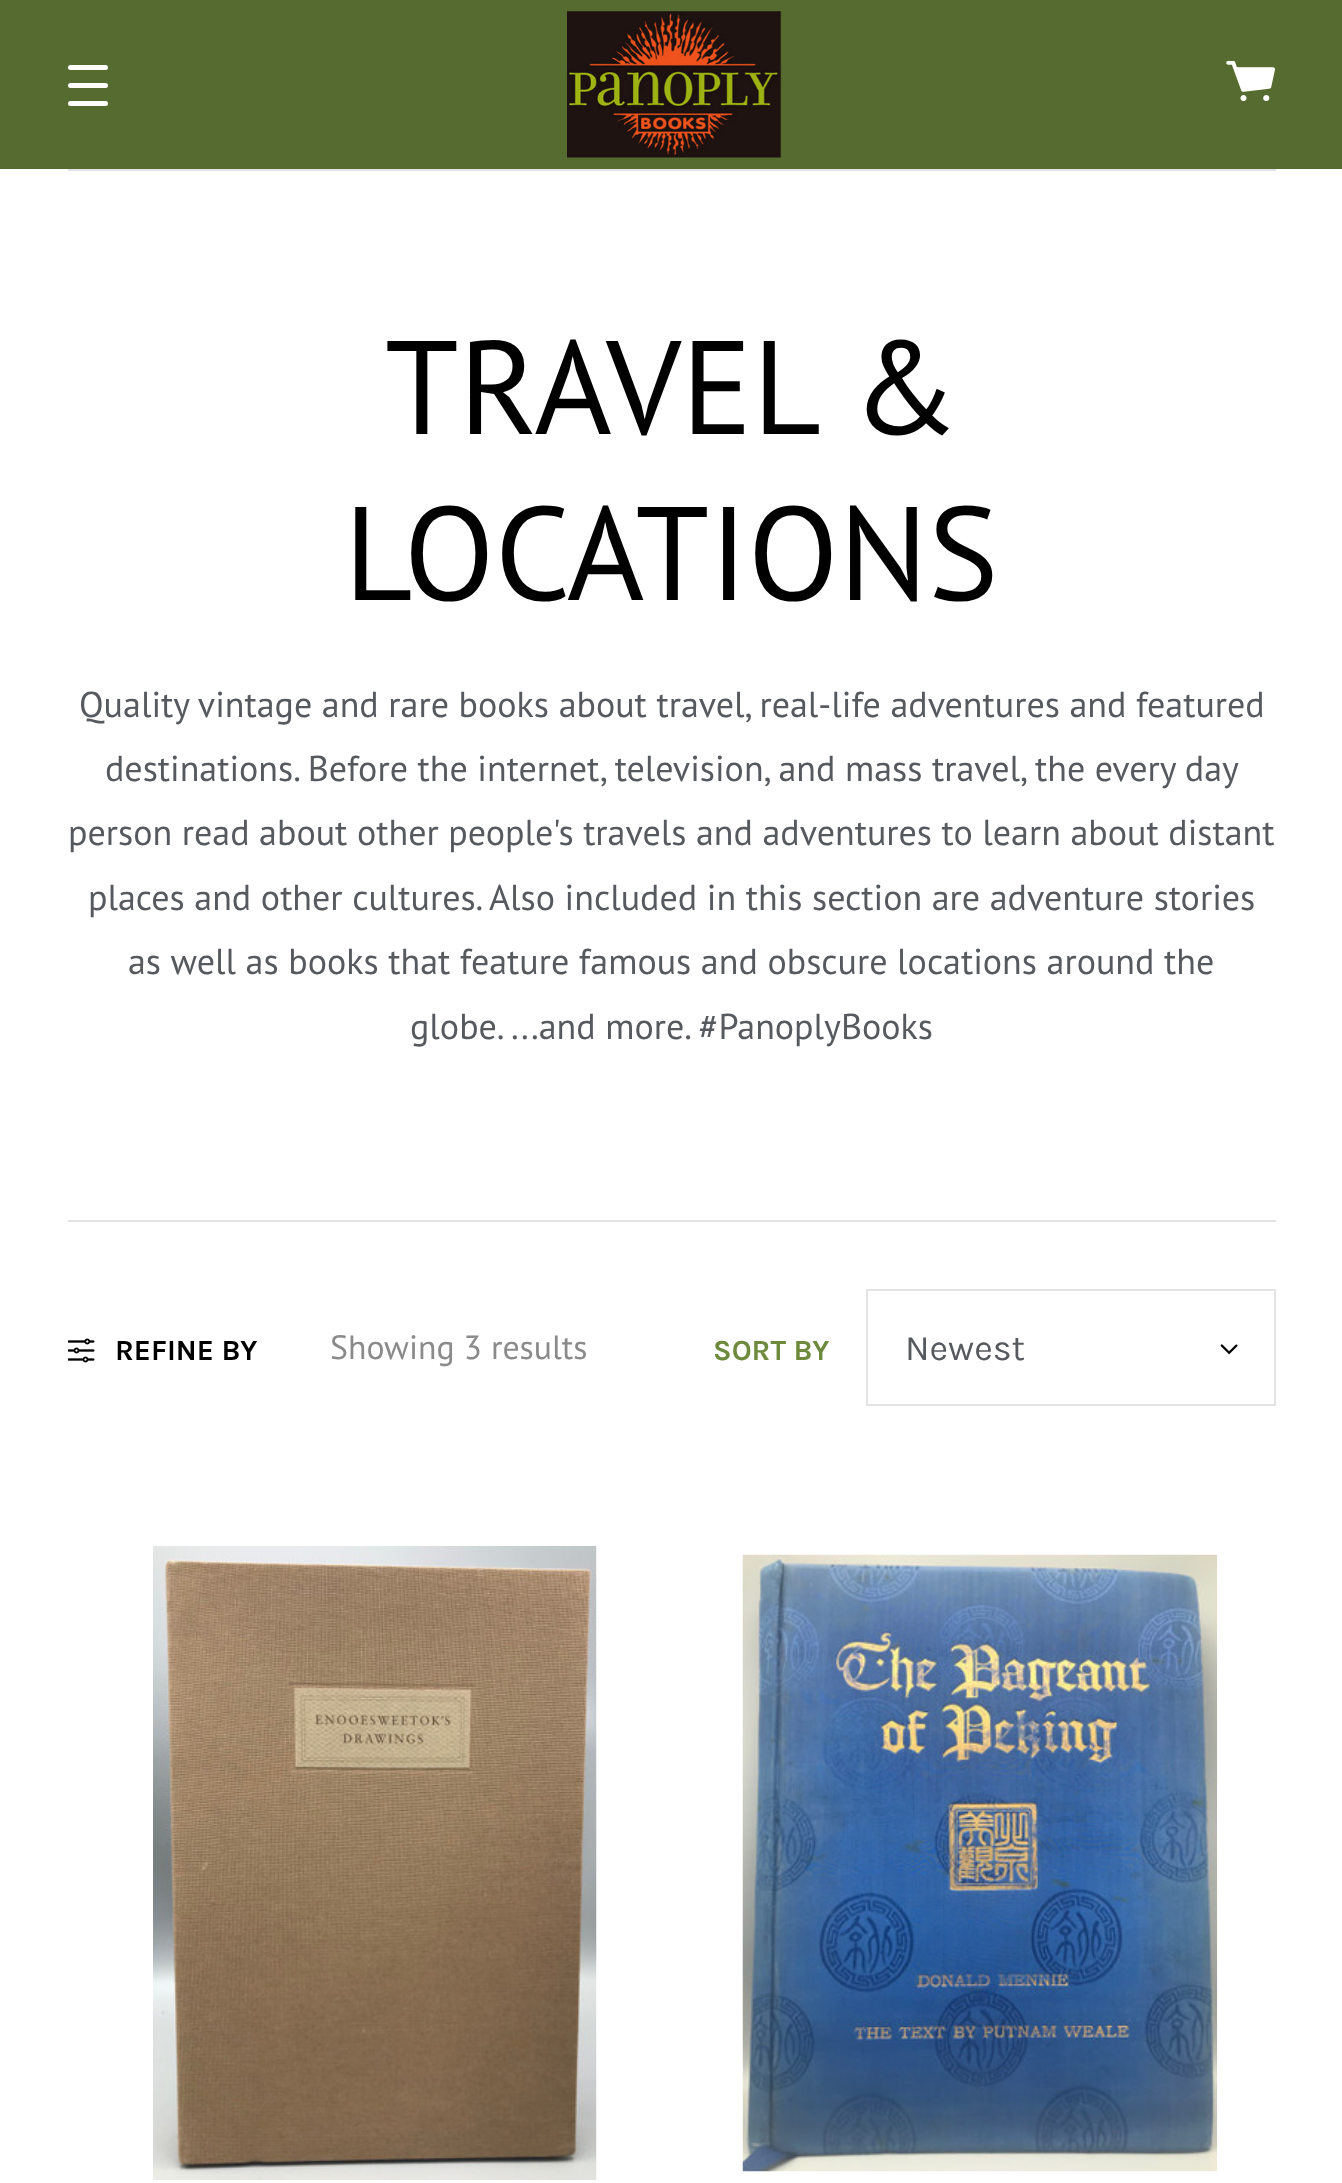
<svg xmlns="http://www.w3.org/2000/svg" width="1342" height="2183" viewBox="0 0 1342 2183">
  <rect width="100%" height="100%" fill="#fff"/>
  <path d="M0 0h1342v169H0z" fill="#556b2f"/>
  <rect x="68" y="65" width="40" height="5" rx="2.5" fill="#fff"/>
  <rect x="68" y="83" width="40" height="5" rx="2.5" fill="#fff"/>
  <rect x="68" y="101" width="40" height="5" rx="2.5" fill="#fff"/>
  <image x="567" y="11" width="215" height="147" href="img/1.png"/>
  <image x="1226" y="61" width="49" height="40" href="img/2.png"/>
  <path d="M68 169h1208v2H68z" fill="#e3e3e3"/>
  <path d="M68 1220h1208v2H68z" fill="#e3e3e3"/>
  <image x="68" y="1338" width="27" height="25" href="img/3.png"/>
  <image x="1220" y="1344" width="18" height="11" href="img/4.png"/>
  <path d="M867 1290h408v115H867z" fill="none" stroke="#e3e3e3" stroke-width="2"/>
  <image x="153" y="1545" width="444" height="635" href="img/5.png"/>
  <image x="742" y="1554" width="476" height="618" href="img/6.png"/>
  <g font-family="PT Sans" font-size="132.75" fill="#000">
    <text x="385" y="434">TRAVEL &amp;</text>
    <text x="344" y="600">LOCATIONS</text>
  </g>
  <g font-family="PT Sans" font-size="36" fill="#565a5e">
    <text x="79" y="717">Quality vintage and rare books about travel, real-life adventures and featured</text>
    <text x="105" y="781">destinations. Before the internet, television, and mass travel, the every day</text>
    <text x="68" y="845">person read about other people's travels and adventures to learn about distant</text>
    <text x="88" y="910">places and other cultures. Also included in this section are adventure stories</text>
    <text x="128" y="974">as well as books that feature famous and obscure locations around the</text>
    <text x="410" y="1039">globe. ...and more. #PanoplyBooks</text>
  </g>
  <text x="115" y="1360" font-family="Karla" font-size="29.25" font-weight="bold" fill="#000">REFINE BY</text>
  <text x="330" y="1359" font-family="PT Sans" font-size="33.75" fill="#8a8a8a">Showing 3 results</text>
  <text x="713" y="1360" font-family="Karla" font-size="29.25" font-weight="bold" fill="#6e8b3d">SORT BY</text>
  <text x="905" y="1360" font-family="Karla" font-size="36" fill="#565a5e">Newest</text>
</svg>
